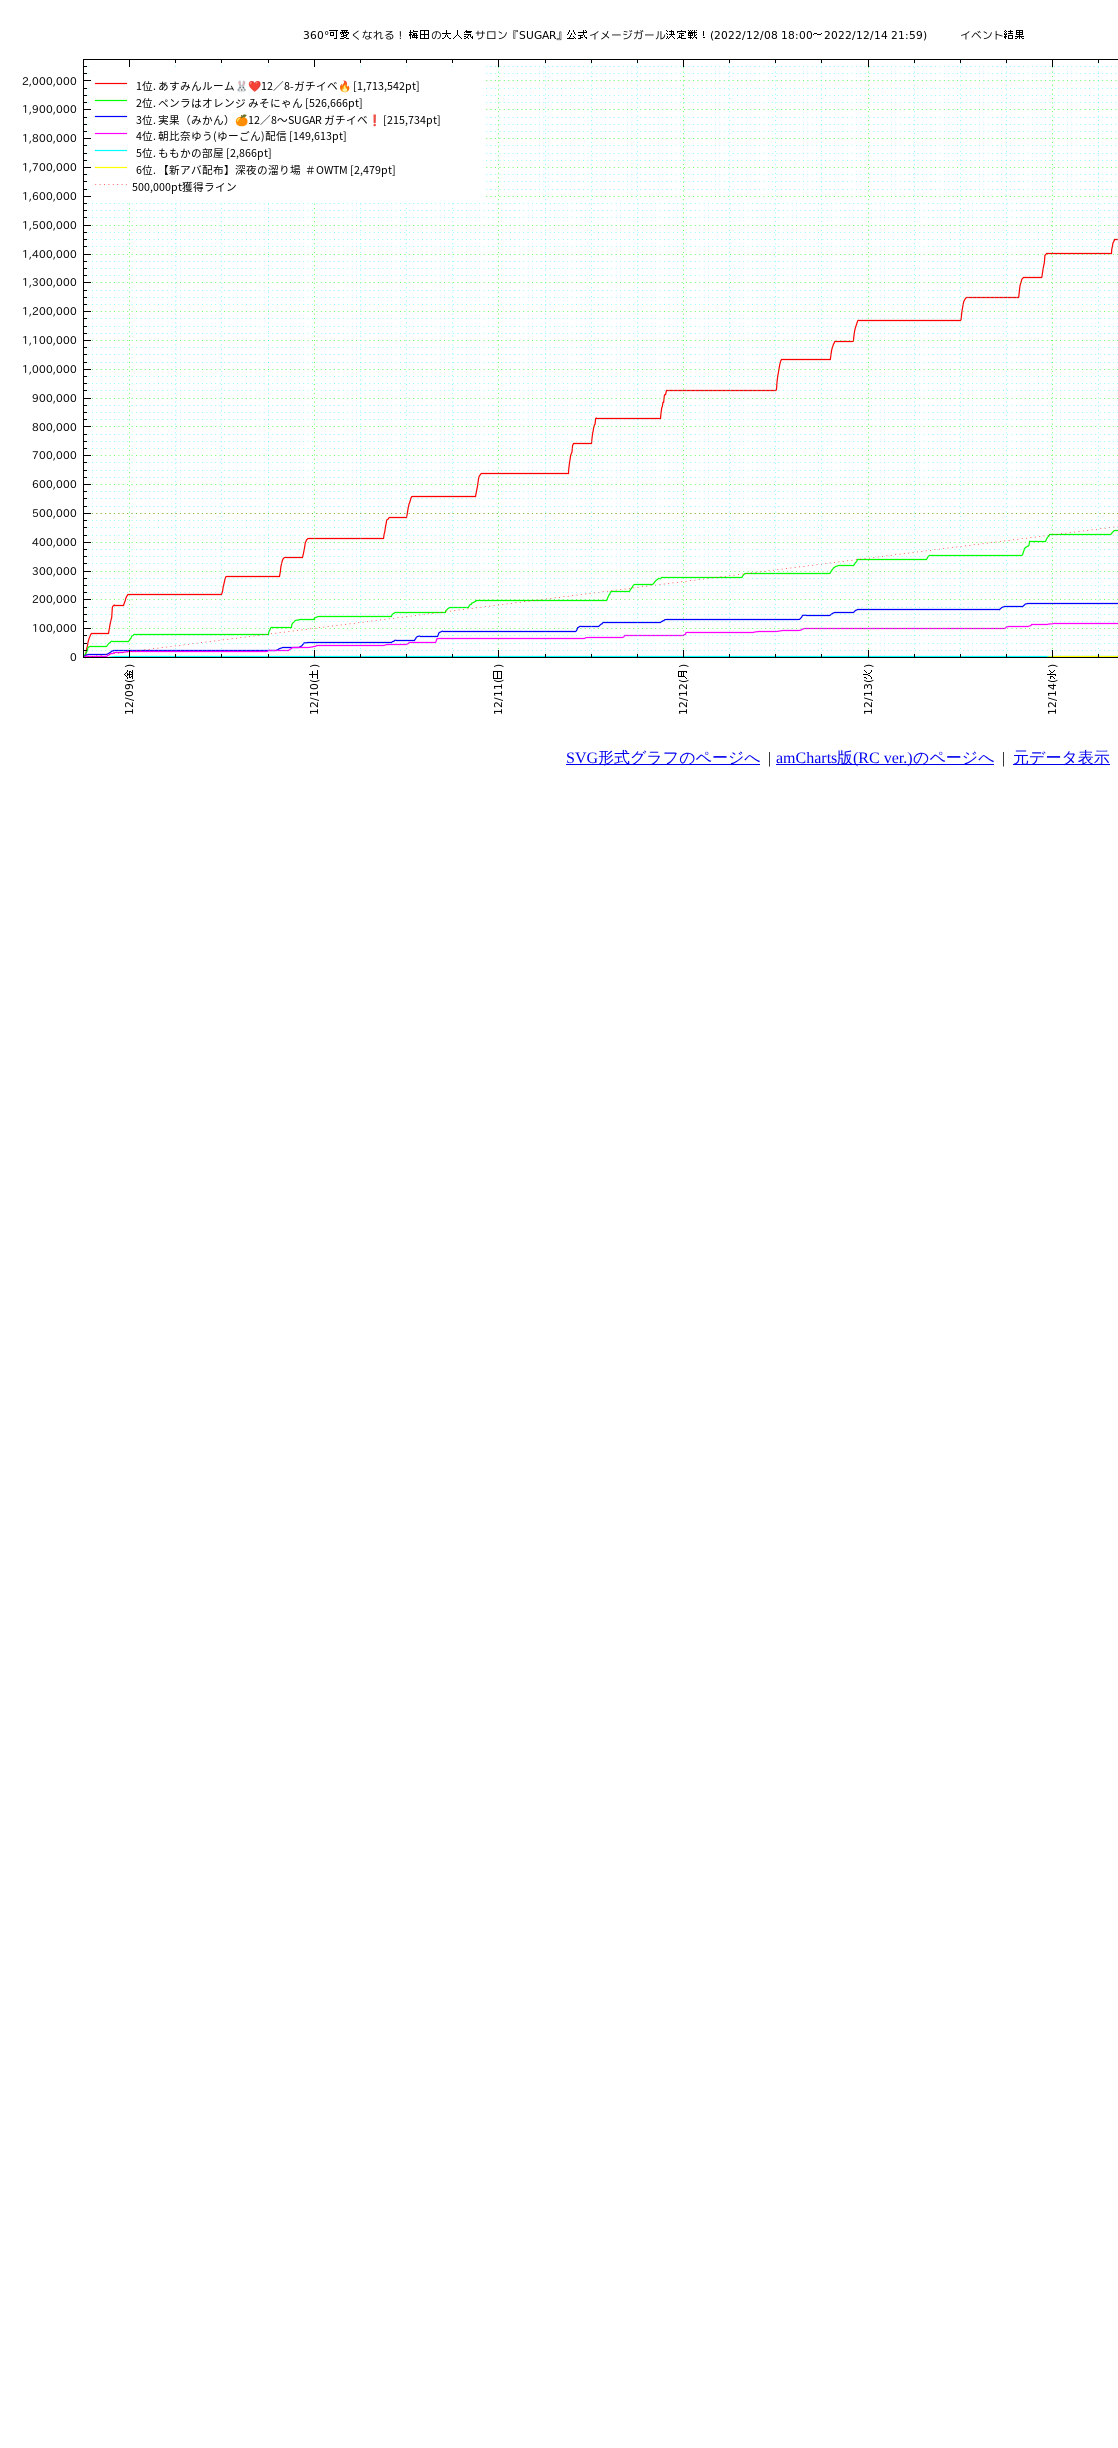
<svg xmlns="http://www.w3.org/2000/svg" width="1118" height="2448" viewBox="0 0 1118 2448">
  <rect width="100%" height="100%" fill="#fff"/>
  <image x="22" y="30" width="1096" height="684" href="img/1.png"/>
  <path d="M566 764h194v1H566z" fill="#00e"/>
  <path d="M776 764h218v1H776z" fill="#00e"/>
  <path d="M1013 764h97v1H1013z" fill="#00e"/>
  <text x="566" y="763" font-family="Liberation Serif" font-size="16" fill="#00e">SVG</text>
  <text x="598" y="763" font-family="WenQuanYi Zen Hei" font-size="16" font-weight="500" fill="#00e">形式グラフのページへ</text>
  <text x="768" y="763" font-family="Liberation Serif" font-size="16" fill="#000">|</text>
  <text x="776" y="763" font-family="Liberation Serif" font-size="16" fill="#00e">amCharts</text>
  <text x="837" y="763" font-family="WenQuanYi Zen Hei" font-size="16" font-weight="500" fill="#00e">版</text>
  <text x="853" y="763" font-family="Liberation Serif" font-size="16" fill="#00e">(RC ver.)</text>
  <text x="913" y="763" font-family="WenQuanYi Zen Hei" font-size="16" font-weight="500" fill="#00e">のページへ</text>
  <text x="1002" y="763" font-family="Liberation Serif" font-size="16" fill="#000">|</text>
  <text x="1013" y="763" font-family="WenQuanYi Zen Hei" font-size="16" font-weight="500" fill="#00e">元データ表示</text>
</svg>
